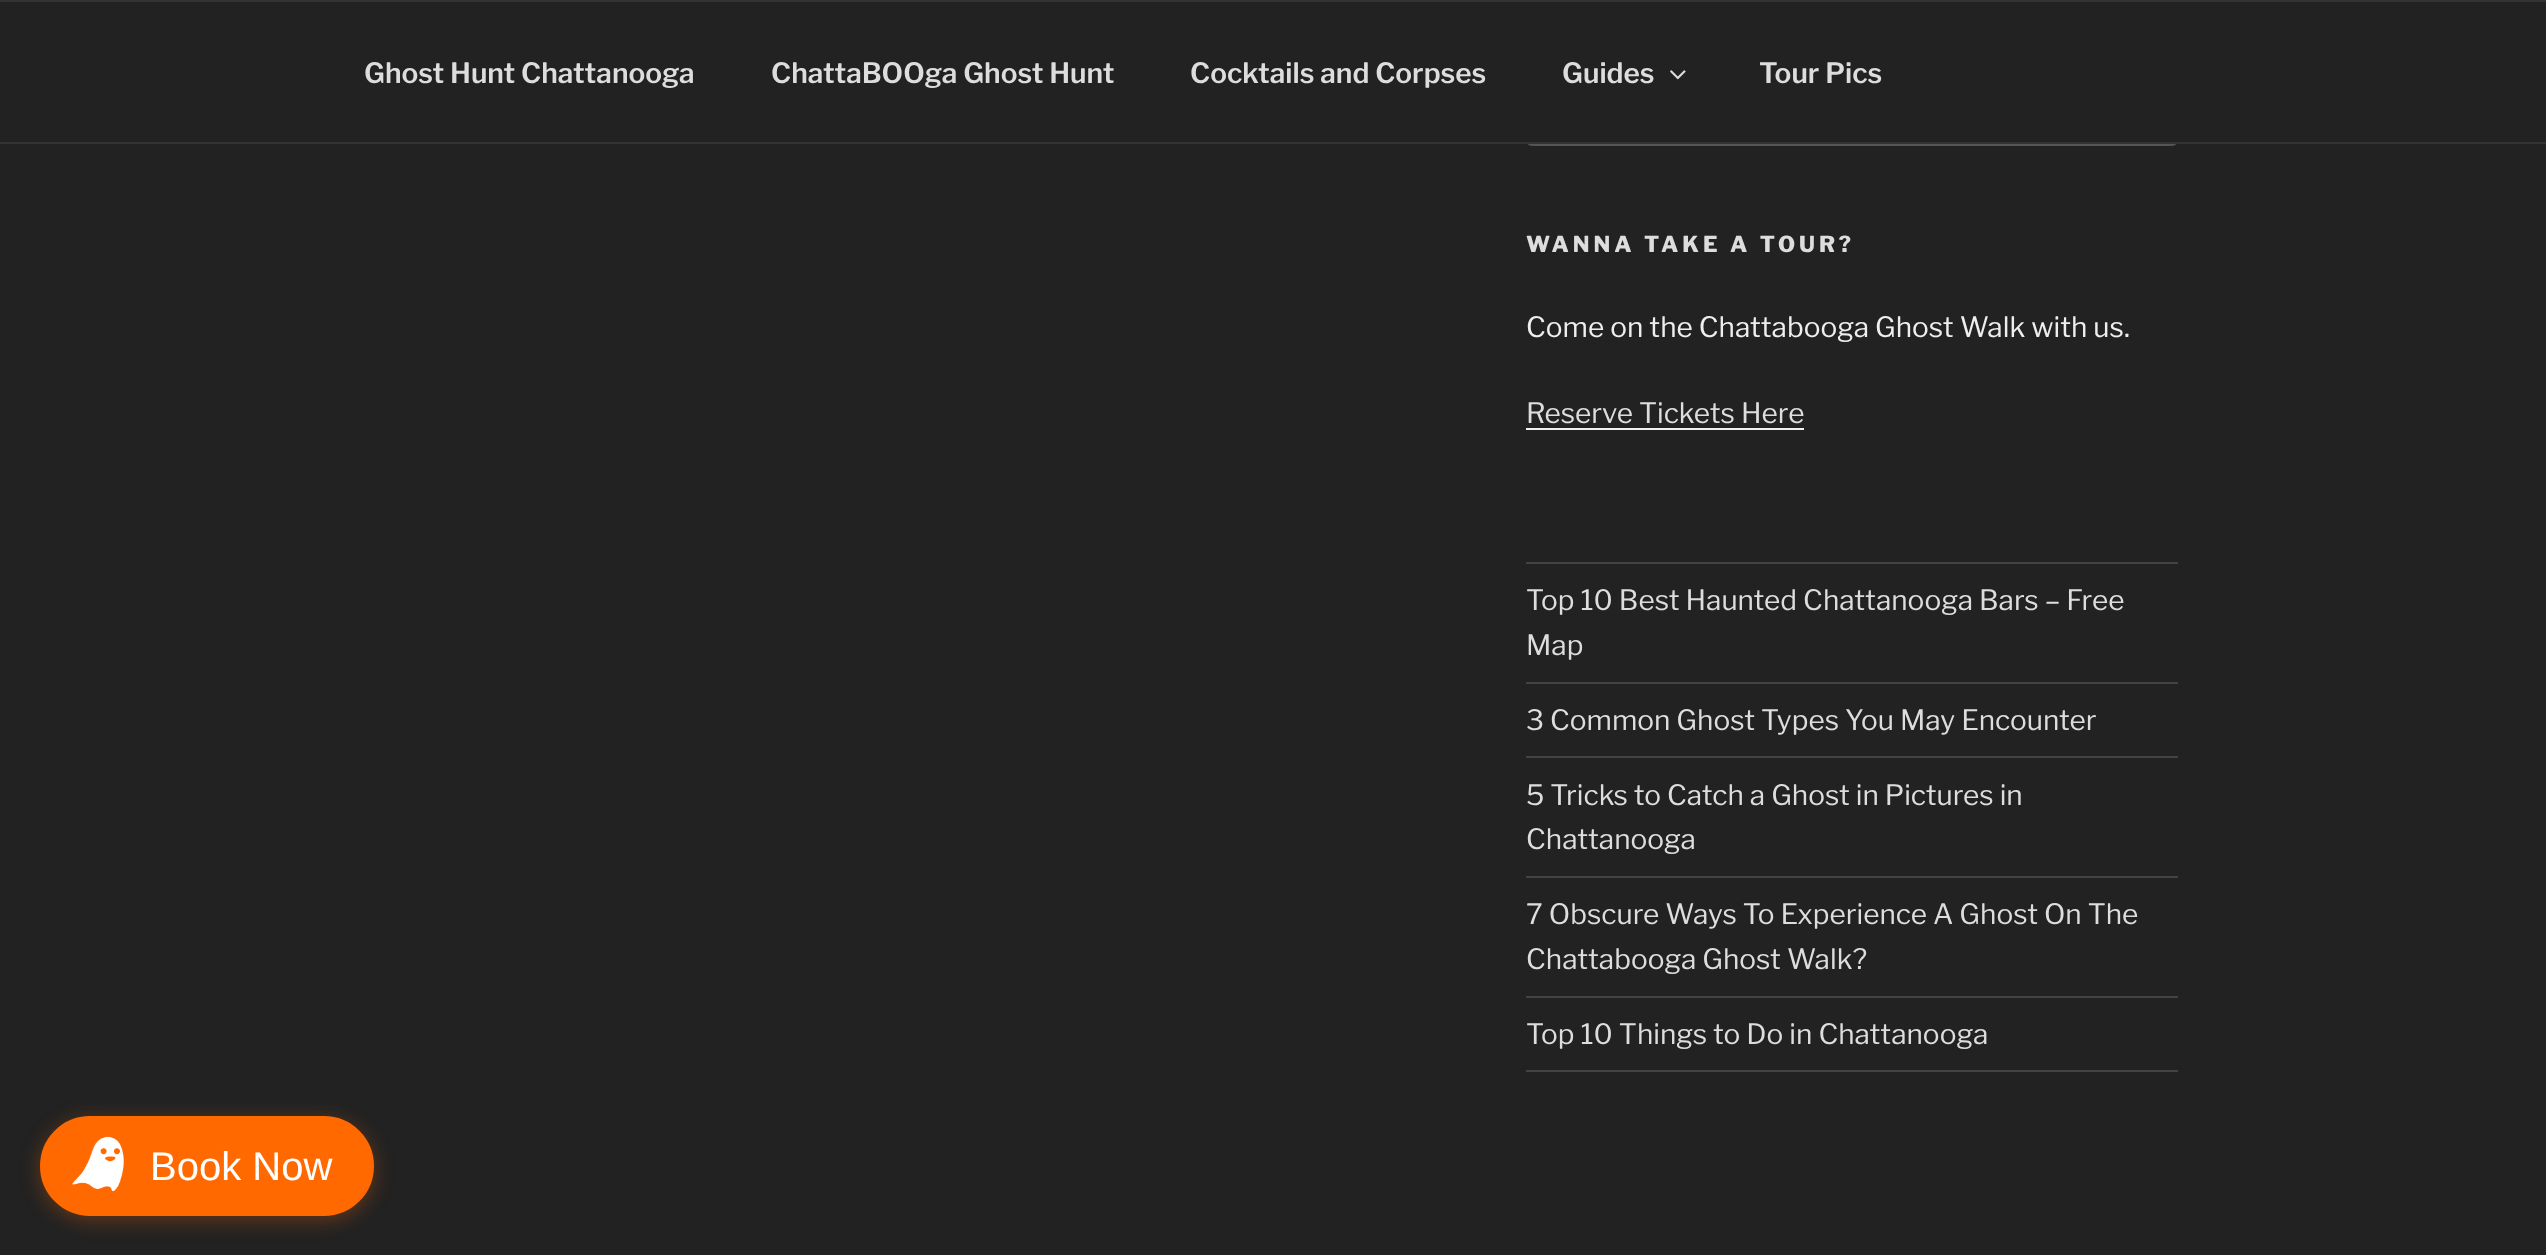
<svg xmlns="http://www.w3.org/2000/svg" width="2546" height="1255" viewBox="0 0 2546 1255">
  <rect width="100%" height="100%" fill="#222"/>
  <rect x="1527" y="51" width="650" height="94" rx="5" fill="none" stroke="#555" stroke-width="2"/>
  <path d="M1526 50h652v92H1526z" fill="#222"/>
  <path d="M0 0h2546v2H0z" fill="#333"/>
  <path d="M0 142h2546v2H0z" fill="#333"/>
  <image x="1670" y="70" width="16" height="10" href="img/1.png"/>
  <path d="M1526 428h278v2H1526z" fill="#f0f0f0"/>
  <path d="M1526 562h652v2H1526z" fill="#444"/>
  <path d="M1526 682h652v2H1526z" fill="#444"/>
  <path d="M1526 756h652v2H1526z" fill="#444"/>
  <path d="M1526 876h652v2H1526z" fill="#444"/>
  <path d="M1526 996h652v2H1526z" fill="#444"/>
  <path d="M1526 1070h652v2H1526z" fill="#444"/>
  <rect x="40" y="1120" width="334" height="100" rx="50" fill="#ff69004d" filter="blur(10px)"/>
  <rect x="41" y="1117" width="332" height="98" rx="49" fill="#ff6900" stroke="#ff6900" stroke-width="2"/>
  <image x="72" y="1136" width="52" height="56" href="img/2.png"/>
  <g font-family="'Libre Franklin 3'" font-size="28" font-weight="100" fill="#ddd">
    <text x="364" y="83">Ghost Hunt Chattanooga</text>
    <text x="771" y="83">ChattaBOOga Ghost Hunt</text>
    <text x="1190" y="83">Cocktails and Corpses</text>
    <text x="1562" y="83">Guides</text>
    <text x="1759" y="83">Tour Pics</text>
  </g>
  <text x="1526" y="252" font-family="Libre Franklin" font-size="22" font-weight="100" letter-spacing="4" fill="#ddd">WANNA TAKE A TOUR?</text>
  <text x="1526" y="337" font-family="'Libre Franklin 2'" font-size="28" font-weight="100" fill="#eee">Come on the Chattabooga Ghost Walk with us.</text>
  <g font-family="'Libre Franklin 2'" font-size="28" font-weight="100" fill="#ddd">
    <text x="1526" y="423">Reserve Tickets Here</text>
    <text x="1526" y="610">Top 10 Best Haunted Chattanooga Bars – Free</text>
    <text x="1526" y="655">Map</text>
    <text x="1526" y="730">3 Common Ghost Types You May Encounter</text>
    <text x="1526" y="805">5 Tricks to Catch a Ghost in Pictures in</text>
    <text x="1526" y="849">Chattanooga</text>
    <text x="1526" y="924">7 Obscure Ways To Experience A Ghost On The</text>
    <text x="1526" y="969">Chattabooga Ghost Walk?</text>
    <text x="1526" y="1044">Top 10 Things to Do in Chattanooga</text>
  </g>
  <text x="150" y="1180" font-family="Liberation Sans" font-size="40" fill="#fff">Book Now</text>
</svg>
